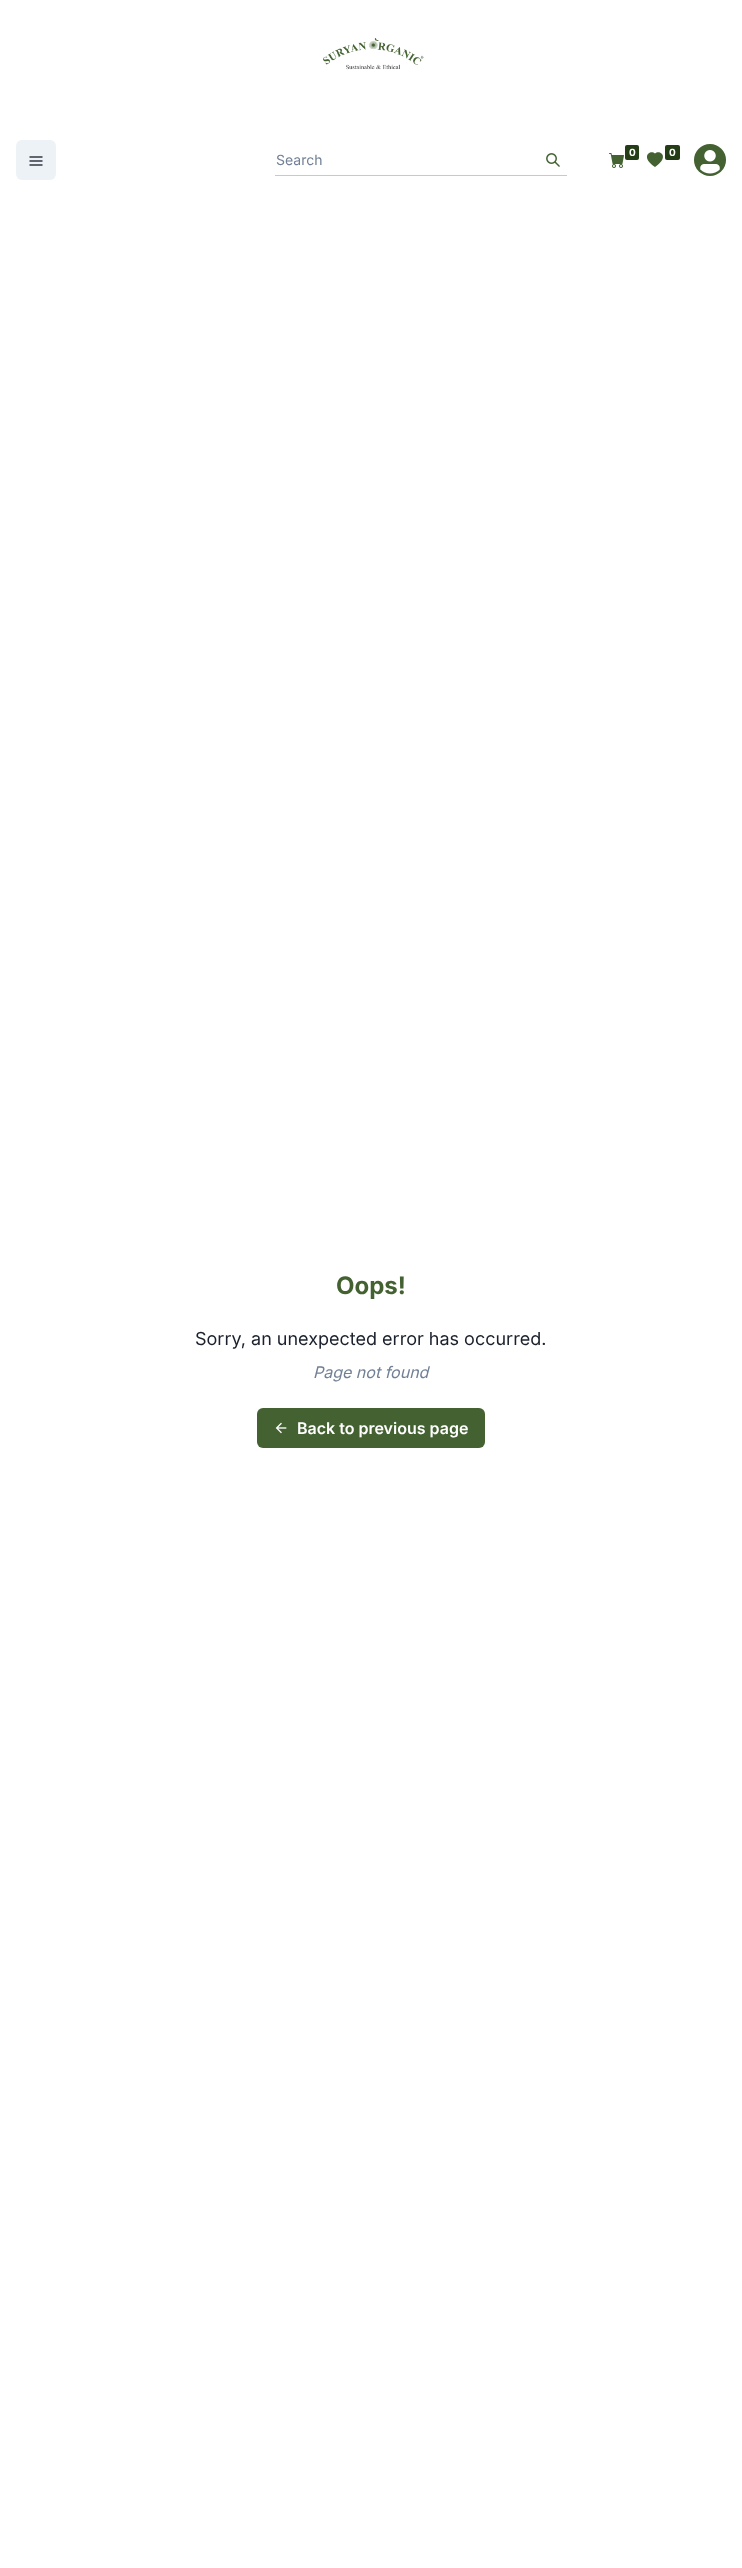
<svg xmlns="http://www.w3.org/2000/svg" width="742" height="2568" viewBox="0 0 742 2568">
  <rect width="100%" height="100%" fill="#fff"/>
  <image x="323" y="38" width="101" height="32" href="img/1.png"/>
  <rect x="16" y="140" width="40" height="40" rx="6" fill="#edf2f7"/>
  <image x="29" y="156" width="14" height="10" href="img/2.png"/>
  <image x="609" y="153" width="15" height="15" href="img/3.png"/>
  <rect x="625" y="145" width="14" height="15" rx="2" fill="#253d17"/>
  <path d="M655 153.5C659.5 149 670.5 156.5 655 167C639.5 156.5 650.5 149 655 153.5Z" fill="#436131" fill-rule="evenodd"/>
  <rect x="665" y="145" width="15" height="15" rx="2" fill="#253d17"/>
  <path d="M275 175h292v1H275z" fill="#c5ceba"/>
  <image x="546" y="153" width="14" height="14" href="img/4.png"/>
  <circle cx="710" cy="160" r="16" fill="#436131"/>
  <image x="700" y="150" width="20" height="24" href="img/5.png"/>
  <rect x="257" y="1408" width="228" height="40" rx="6" fill="#436131"/>
  <image x="275" y="1422" width="12" height="12" href="img/6.png"/>
  <g font-family="Inter" font-size="10" font-weight="bold" fill="#fff">
    <text x="629" y="156">0</text>
    <text x="669" y="156">0</text>
  </g>
  <text x="276" y="165" font-family="Inter" font-size="14" fill="#718096">Search</text>
  <text x="336" y="1294" font-family="Inter" font-size="24" font-weight="bold" fill="#436131">Oops!</text>
  <text x="195" y="1345" font-family="Inter" font-size="18" fill="#1a202c">Sorry, an unexpected error has occurred.</text>
  <text x="313" y="1378" font-family="Inter" font-size="16" font-style="italic" fill="#718096">Page not found</text>
  <text x="297" y="1434" font-family="Inter" font-size="16" font-weight="600" fill="#fff">Back to previous page</text>
</svg>
